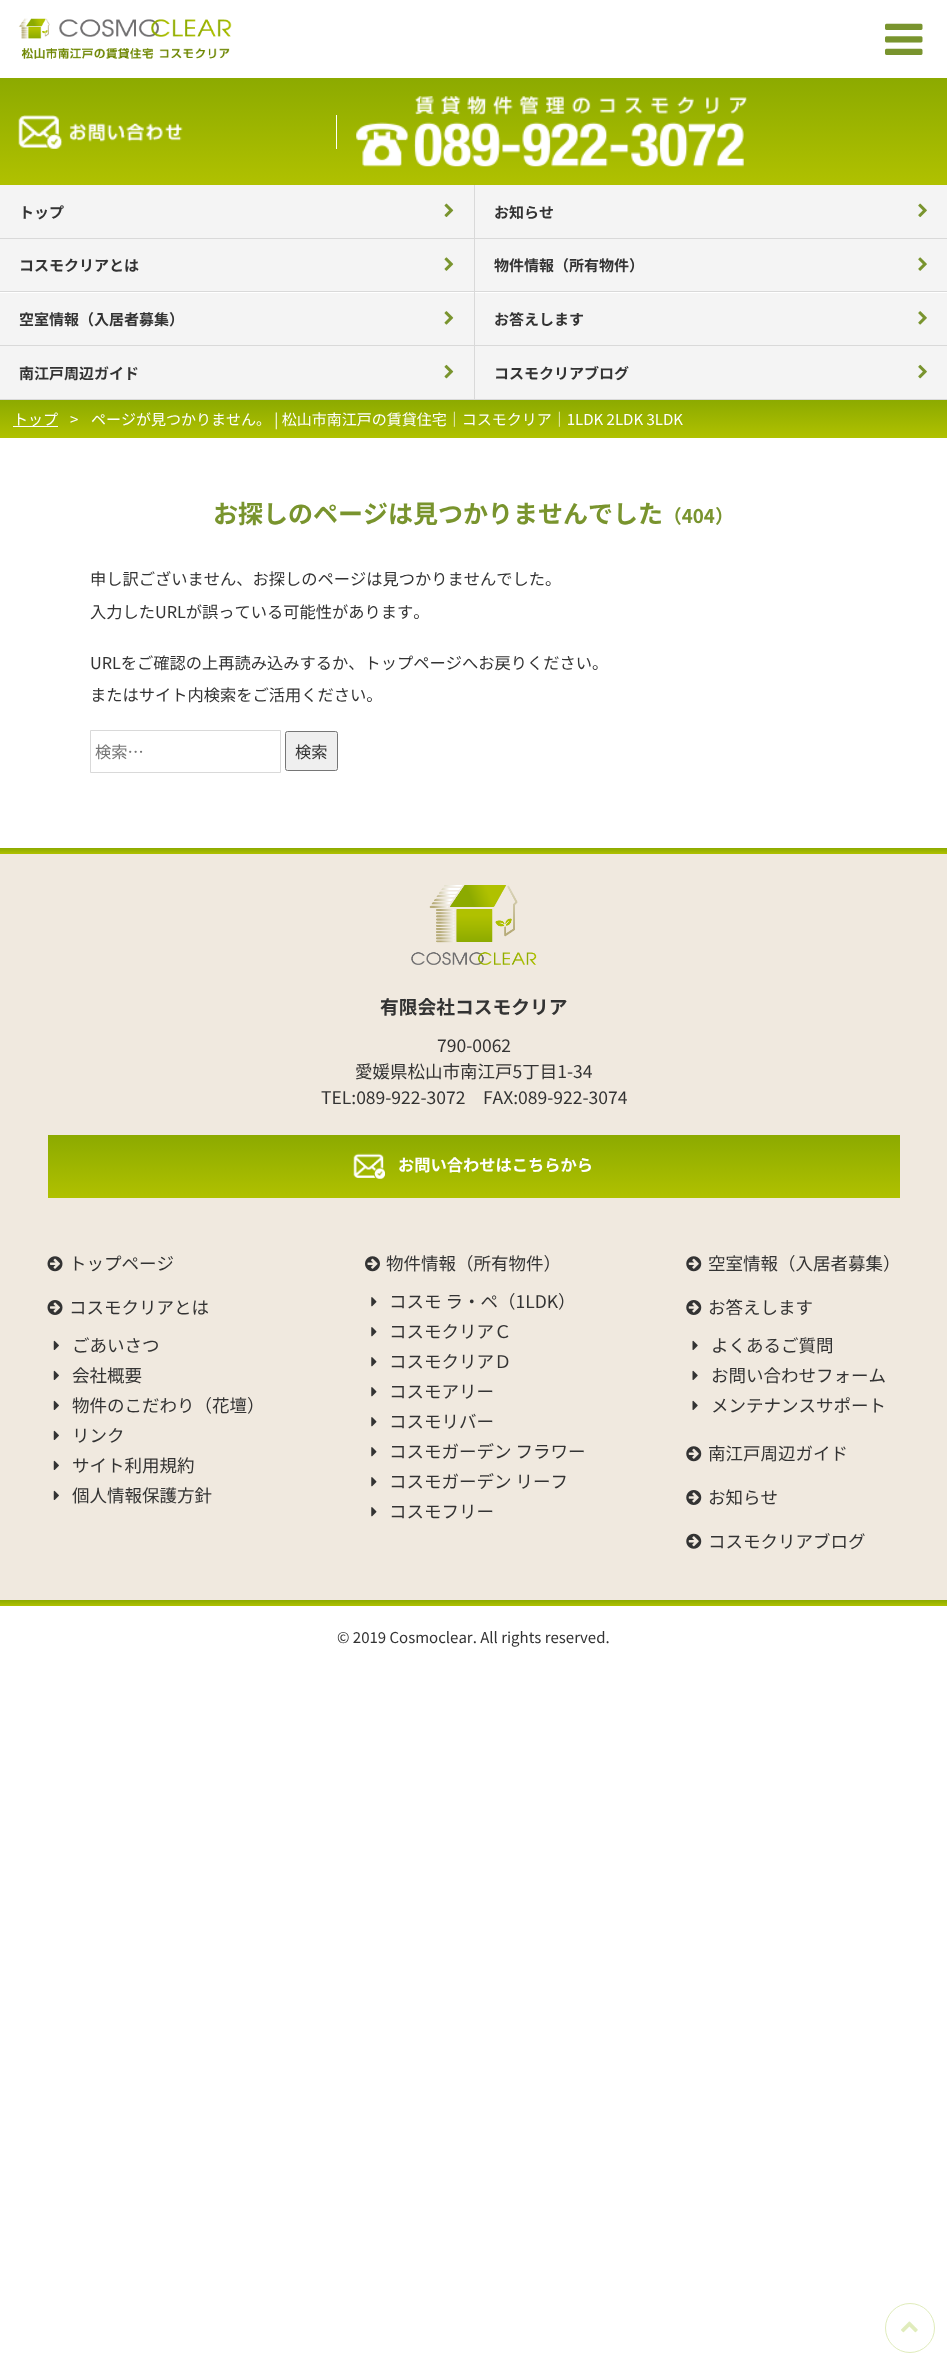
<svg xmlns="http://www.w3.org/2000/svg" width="947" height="2364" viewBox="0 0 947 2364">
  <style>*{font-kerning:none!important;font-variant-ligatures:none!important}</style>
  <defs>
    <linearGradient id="g1" gradientUnits="userSpaceOnUse" x1="474" y1="77" x2="474" y2="185"><stop offset="0" stop-color="#8caa00"/><stop offset="1" stop-color="#b0c100"/></linearGradient>
    <linearGradient id="g2" gradientUnits="userSpaceOnUse" x1="474" y1="400" x2="474" y2="438"><stop offset="0" stop-color="#8caa00"/><stop offset="1" stop-color="#b0c100"/></linearGradient>
    <linearGradient id="g3" gradientUnits="userSpaceOnUse" x1="474" y1="848" x2="474" y2="854"><stop offset="0" stop-color="#8caa00"/><stop offset="1" stop-color="#b0c100"/></linearGradient>
    <linearGradient id="g4" gradientUnits="userSpaceOnUse" x1="474" y1="1135" x2="474" y2="1198"><stop offset="0" stop-color="#8caa00"/><stop offset="1" stop-color="#b0c100"/></linearGradient>
    <linearGradient id="g5" gradientUnits="userSpaceOnUse" x1="474" y1="1600" x2="474" y2="1606"><stop offset="0" stop-color="#8caa00"/><stop offset="1" stop-color="#b0c100"/></linearGradient>
  </defs>
  <rect width="100%" height="100%" fill="#fff"/>
  <image x="18" y="18" width="214" height="41" href="img/1.png"/>
  <path d="M0 78h947v107H0z" fill="url(#g1)"/>
  <path d="M336 115h1v34H336z" fill="#fff"/>
  <image x="18" y="115" width="165" height="34" href="img/2.png"/>
  <image x="356" y="96" width="391" height="71" href="img/3.png"/>
  <image x="885" y="23" width="38" height="32" href="img/4.png"/>
  <path d="M0 238h947v1H0z" fill="#d9d9d9"/>
  <path d="M0 185h474v53H0z" fill="#f4f4f4"/>
  <image x="444" y="203" width="10" height="15" href="img/5.png"/>
  <path d="M474 185h1v54H474z" fill="#d9d9d9"/>
  <path d="M475 185h472v53H475z" fill="#f4f4f4"/>
  <image x="918" y="203" width="9" height="15" href="img/6.png"/>
  <path d="M0 291h947v1H0z" fill="#d9d9d9"/>
  <path d="M0 239h474v52H0z" fill="#f4f4f4"/>
  <image x="444" y="257" width="10" height="14" href="img/7.png"/>
  <path d="M0 345h947v1H0z" fill="#d9d9d9"/>
  <path d="M474 239h1v107H474z" fill="#d9d9d9"/>
  <path d="M475 239h472v52H475z" fill="#f4f4f4"/>
  <image x="918" y="257" width="9" height="14" href="img/8.png"/>
  <path d="M0 293h474v52H0z" fill="#f4f4f4"/>
  <image x="444" y="311" width="10" height="14" href="img/9.png"/>
  <path d="M475 293h472v52H475z" fill="#f4f4f4"/>
  <image x="918" y="311" width="9" height="14" href="img/10.png"/>
  <path d="M0 399h947v1H0z" fill="#d9d9d9"/>
  <path d="M0 346h474v53H0z" fill="#f4f4f4"/>
  <image x="444" y="364" width="10" height="15" href="img/11.png"/>
  <path d="M474 346h1v54H474z" fill="#d9d9d9"/>
  <path d="M475 346h472v53H475z" fill="#f4f4f4"/>
  <image x="918" y="364" width="9" height="15" href="img/12.png"/>
  <path d="M0 400h947v38H0z" fill="url(#g2)"/>
  <path d="M13 426h45v1H13z" fill="#fff"/>
  <path d="M90.5 730.5h190v42H90.5z" fill="none" stroke="#d9d9d9"/>
  <rect x="285.5" y="731.5" width="52" height="39" rx="2" fill="#efefef" stroke="#767676"/>
  <path d="M0 854h947v746H0z" fill="#f0e9df"/>
  <path d="M0 848h947v6H0z" fill="url(#g3)"/>
  <image x="411" y="885" width="126" height="80" href="img/13.png"/>
  <path d="M48 1135h852v63H48z" fill="url(#g4)"/>
  <image x="353" y="1153" width="32" height="26" href="img/14.png"/>
  <image x="47" y="1256" width="16" height="16" href="img/15.png"/>
  <image x="47" y="1300" width="16" height="15" href="img/16.png"/>
  <image x="53" y="1340" width="6" height="10" href="img/17.png"/>
  <image x="53" y="1370" width="6" height="10" href="img/17.png"/>
  <image x="53" y="1400" width="6" height="10" href="img/17.png"/>
  <image x="53" y="1430" width="6" height="10" href="img/17.png"/>
  <image x="53" y="1460" width="6" height="10" href="img/17.png"/>
  <image x="53" y="1490" width="6" height="10" href="img/17.png"/>
  <image x="365" y="1256" width="15" height="16" href="img/18.png"/>
  <image x="371" y="1297" width="6" height="10" href="img/19.png"/>
  <image x="371" y="1327" width="6" height="10" href="img/19.png"/>
  <image x="371" y="1357" width="6" height="10" href="img/19.png"/>
  <image x="371" y="1387" width="6" height="10" href="img/19.png"/>
  <image x="371" y="1417" width="6" height="10" href="img/19.png"/>
  <image x="371" y="1447" width="6" height="10" href="img/19.png"/>
  <image x="371" y="1477" width="6" height="10" href="img/19.png"/>
  <image x="371" y="1507" width="6" height="10" href="img/19.png"/>
  <image x="686" y="1256" width="16" height="16" href="img/20.png"/>
  <image x="686" y="1300" width="16" height="15" href="img/21.png"/>
  <image x="692" y="1340" width="6" height="10" href="img/22.png"/>
  <image x="692" y="1370" width="6" height="10" href="img/22.png"/>
  <image x="692" y="1400" width="6" height="10" href="img/22.png"/>
  <image x="686" y="1446" width="16" height="16" href="img/20.png"/>
  <image x="686" y="1490" width="16" height="15" href="img/21.png"/>
  <image x="686" y="1533" width="16" height="16" href="img/23.png"/>
  <path d="M0 1600h947v6H0z" fill="url(#g5)"/>
  <circle cx="910" cy="2328" r="24.5" fill="none" stroke="#e0ecbc"/>
  <image x="901" y="2321" width="17" height="12" href="img/24.png"/>
  <g font-family="Noto Sans JP" font-size="15" font-weight="bold" fill="#333">
    <text x="19" y="218">トップ</text>
    <text x="494" y="218">お知らせ</text>
    <text x="19" y="271">コスモクリアとは</text>
    <text x="494" y="271">物件情報（所有物件）</text>
    <text x="19" y="325">空室情報（入居者募集）</text>
    <text x="494" y="325">お答えします</text>
    <text x="19" y="379">南江戸周辺ガイド</text>
    <text x="494" y="379">コスモクリアブログ</text>
  </g>
  <g font-family="Noto Sans JP" font-size="15" fill="#fff">
    <text x="13" y="425">トップ</text>
    <text x="70" y="425">&gt;</text>
    <text x="91" y="425">ページが見つかりません。 | 松山市南江戸の賃貸住宅｜コスモクリア｜1LDK 2LDK 3LDK</text>
  </g>
  <text x="213" y="523" font-family="Noto Sans JP" font-size="25" font-weight="bold" fill="#79942e">お探しのページは見つかりませんでした</text>
  <text x="663" y="523" font-family="Noto Sans JP" font-size="18.75" font-weight="bold" fill="#79942e">（404）</text>
  <g font-family="Noto Sans JP" font-size="16.25" fill="#333">
    <text x="90" y="585">申し訳ございません、お探しのページは見つかりませんでした。</text>
    <text x="90" y="618">入力したURLが誤っている可能性があります。</text>
    <text x="90" y="669">URLをご確認の上再読み込みするか、トップページへお戻りください。</text>
    <text x="90" y="701">またはサイト内検索をご活用ください。</text>
  </g>
  <text x="95" y="758" font-family="Noto Sans JP" font-size="16.25" fill="#757575">検索…</text>
  <text x="295" y="758" font-family="Noto Sans JP" font-size="16.25" fill="#333">検索</text>
  <text x="380" y="1014" font-family="Noto Sans JP" font-size="18.75" font-weight="bold" fill="#333">有限会社コスモクリア</text>
  <g font-family="Noto Sans JP" font-size="17.5" fill="#333">
    <text x="437" y="1052">790-0062</text>
    <text x="355" y="1078">愛媛県松山市南江戸5丁目1-34</text>
    <text x="321" y="1104">TEL:089-922-3072　FAX:089-922-3074</text>
  </g>
  <text x="398" y="1171" font-family="Noto Sans JP" font-size="16.25" font-weight="bold" fill="#fff">お問い合わせはこちらから</text>
  <g font-family="Noto Sans JP" font-size="17.5" fill="#333">
    <text x="69" y="1270">トップページ</text>
    <text x="69" y="1314">コスモクリアとは</text>
    <text x="72" y="1352">ごあいさつ</text>
    <text x="72" y="1382">会社概要</text>
    <text x="72" y="1412">物件のこだわり（花壇）</text>
    <text x="72" y="1442">リンク</text>
    <text x="72" y="1472">サイト利用規約</text>
    <text x="72" y="1502">個人情報保護方針</text>
    <text x="386" y="1270">物件情報（所有物件）</text>
    <text x="389" y="1308">コスモ ラ・ペ（1LDK）</text>
    <text x="389" y="1338">コスモクリアＣ</text>
    <text x="389" y="1368">コスモクリアＤ</text>
    <text x="389" y="1398">コスモアリー</text>
    <text x="389" y="1428">コスモリバー</text>
    <text x="389" y="1458">コスモガーデン フラワー</text>
    <text x="389" y="1488">コスモガーデン リーフ</text>
    <text x="389" y="1518">コスモフリー</text>
    <text x="708" y="1270">空室情報（入居者募集）</text>
    <text x="708" y="1314">お答えします</text>
    <text x="711" y="1352">よくあるご質問</text>
    <text x="711" y="1382">お問い合わせフォーム</text>
    <text x="711" y="1412">メンテナンスサポート</text>
    <text x="708" y="1460">南江戸周辺ガイド</text>
    <text x="708" y="1504">お知らせ</text>
    <text x="708" y="1548">コスモクリアブログ</text>
  </g>
  <text x="337" y="1643" font-family="Noto Sans JP" font-size="15" fill="#333">© 2019 Cosmoclear. All rights reserved.</text>
</svg>
